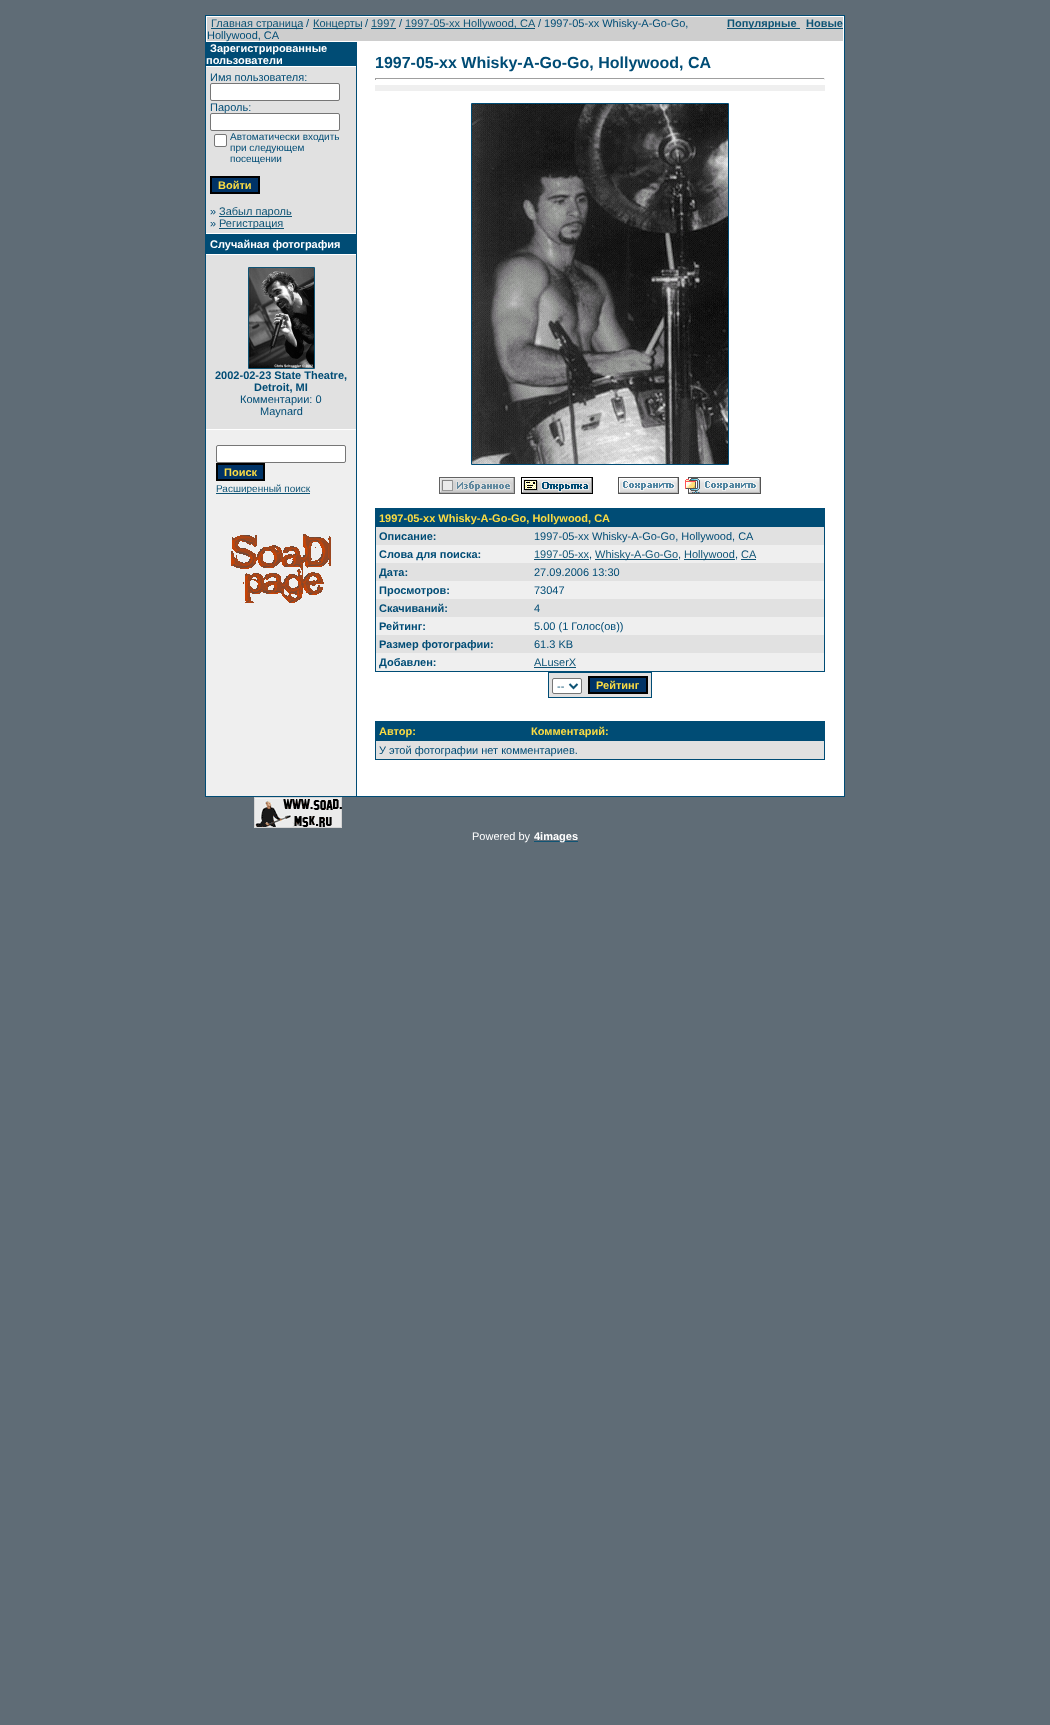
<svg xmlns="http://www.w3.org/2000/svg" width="1050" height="1725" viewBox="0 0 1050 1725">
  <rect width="100%" height="100%" fill="#5f6c76"/>
  <path d="M205 15h640v782H205z" fill="#004c75"/>
  <path d="M206 16h638v780H206z" fill="#fff"/>
  <path d="M207 17h636v24H207z" fill="#cecece"/>
  <path d="M211 28h92v1H211z" fill="#0f5475"/>
  <path d="M313 28h49v1H313z" fill="#0f5475"/>
  <path d="M371 28h25v1H371z" fill="#0f5475"/>
  <path d="M405 28h130v1H405z" fill="#0f5475"/>
  <path d="M727 28h73v1H727z" fill="#0f5475"/>
  <path d="M806 28h37v1H806z" fill="#0f5475"/>
  <path d="M206 430h150v366H206z" fill="#efefef"/>
  <path d="M206 42h150v24H206z" fill="#004c75"/>
  <path d="M206 67h150v166H206z" fill="#e1e1e1"/>
  <rect x="210.5" y="83.5" width="129" height="17" rx="1.5" fill="#fff" stroke="#767676"/>
  <rect x="214.5" y="134.5" width="12" height="12" rx="1.5" fill="#fff" stroke="#767676"/>
  <path d="M211 177h48v16H211z" fill="#036" stroke="#000" stroke-width="2"/>
  <path d="M219 216h73v1H219z" fill="#0f5475"/>
  <path d="M219 228h65v1H219z" fill="#0f5475"/>
  <path d="M206 234h150v20H206z" fill="#004c75"/>
  <path d="M206 255h150v174H206z" fill="#e1e1e1"/>
  <path d="M248.5 267.5h66v101H248.5z" fill="none" stroke="#0f5475"/>
  <image x="249" y="268" width="65" height="100" href="img/1.png"/>
  <rect x="216.5" y="445.5" width="129" height="17" rx="1.5" fill="#fff" stroke="#767676"/>
  <path d="M217 464h47v16H217z" fill="#036" stroke="#000" stroke-width="2"/>
  <path d="M216 493h94v1H216z" fill="#0f5475"/>
  <image x="231" y="534" width="100" height="69" href="img/2.png"/>
  <path d="M356 42h1v754H356z" fill="#004c75"/>
  <path d="M375 78h450v1H375z" fill="#9f9f9f"/>
  <path d="M824 78h1v2H824z" fill="#eee"/>
  <path d="M375 78h1v2H375z" fill="#9f9f9f"/>
  <path d="M375 85h450v6H375z" fill="#efefef"/>
  <path d="M471.5 103.5h257v361H471.5z" fill="none" stroke="#004c75"/>
  <image x="472" y="104" width="256" height="360" href="img/3.png"/>
  <image x="439" y="477" width="76" height="17" href="img/4.png"/>
  <image x="521" y="477" width="72" height="17" href="img/5.png"/>
  <image x="618" y="477" width="61" height="17" href="img/6.png"/>
  <image x="685" y="477" width="76" height="17" href="img/7.png"/>
  <path d="M375 508h450v164H375z" fill="#004c75"/>
  <path d="M376 527h448v18H376z" fill="#e1e1e1"/>
  <path d="M376 545h448v18H376z" fill="#efefef"/>
  <path d="M534 559h55v1H534z" fill="#0f5475"/>
  <path d="M595 559h83v1H595z" fill="#0f5475"/>
  <path d="M684 559h51v1H684z" fill="#0f5475"/>
  <path d="M741 559h15v1H741z" fill="#0f5475"/>
  <path d="M376 563h448v18H376z" fill="#e1e1e1"/>
  <path d="M376 581h448v18H376z" fill="#efefef"/>
  <path d="M376 599h448v18H376z" fill="#e1e1e1"/>
  <path d="M376 617h448v18H376z" fill="#efefef"/>
  <path d="M376 635h448v18H376z" fill="#e1e1e1"/>
  <path d="M376 653h448v18H376z" fill="#efefef"/>
  <path d="M534 667h42v1H534z" fill="#0f5475"/>
  <path d="M548 672h104v26H548z" fill="#004c75"/>
  <path d="M549 673h102v24H549z" fill="#e1e1e1"/>
  <rect x="552.5" y="678.5" width="29" height="15" rx="1.5" fill="#fff" stroke="#767676"/>
  <path d="M569.5 684L573.5 688L577.5 684" fill="none" stroke="#0f5475" stroke-width="2"/>
  <path d="M589 677h58v16H589z" fill="#036" stroke="#000" stroke-width="2"/>
  <path d="M375 721h450v39H375z" fill="#004c75"/>
  <path d="M376 741h448v18H376z" fill="#e1e1e1"/>
  <image x="254" y="797" width="88" height="31" href="img/8.png"/>
  <path d="M534 841h44v1H534z" fill="#0f5475"/>
  <text x="211" y="27" font-family="Liberation Sans" font-size="11" fill="#0f5475">Главная страница</text>
  <text x="306" y="27" font-family="Liberation Sans" font-size="11" fill="#004c75">/</text>
  <text x="313" y="27" font-family="Liberation Sans" font-size="11" fill="#0f5475">Концерты</text>
  <text x="365" y="27" font-family="Liberation Sans" font-size="11" fill="#004c75">/</text>
  <text x="371" y="27" font-family="Liberation Sans" font-size="11" fill="#0f5475">1997</text>
  <text x="399" y="27" font-family="Liberation Sans" font-size="11" fill="#004c75">/</text>
  <text x="405" y="27" font-family="Liberation Sans" font-size="11" fill="#0f5475">1997-05-xx Hollywood, CA</text>
  <g font-family="Liberation Sans" font-size="11" fill="#004c75">
    <text x="538" y="27">/ 1997-05-xx Whisky-A-Go-Go,</text>
    <text x="207" y="39">Hollywood, CA</text>
  </g>
  <g font-family="Liberation Sans" font-size="11" font-weight="bold" fill="#0f5475">
    <text x="727" y="27">Популярные</text>
    <text x="806" y="27">Новые</text>
  </g>
  <g font-family="Liberation Sans" font-size="11" font-weight="bold" fill="#fff">
    <text x="210" y="52">Зарегистрированные</text>
    <text x="206" y="64">пользователи</text>
  </g>
  <g font-family="Liberation Sans" font-size="11" fill="#004c75">
    <text x="210" y="81">Имя пользователя:</text>
    <text x="210" y="111">Пароль:</text>
  </g>
  <rect x="210.5" y="113.5" width="129" height="17" rx="1.5" fill="#fff" stroke="#767676"/>
  <g font-family="Liberation Sans" font-size="10" fill="#004c75">
    <text x="230" y="140">Автоматически входить</text>
    <text x="230" y="151">при следующем</text>
    <text x="230" y="162">посещении</text>
  </g>
  <text x="218" y="189" font-family="Liberation Sans" font-size="11" font-weight="bold" fill="#fcdc43">Войти</text>
  <text x="210" y="215" font-family="Liberation Sans" font-size="11" fill="#004c75">»</text>
  <text x="219" y="215" font-family="Liberation Sans" font-size="11" fill="#0f5475">Забыл пароль</text>
  <text x="210" y="227" font-family="Liberation Sans" font-size="11" fill="#004c75">»</text>
  <text x="219" y="227" font-family="Liberation Sans" font-size="11" fill="#0f5475">Регистрация</text>
  <text x="210" y="248" font-family="Liberation Sans" font-size="11" font-weight="bold" fill="#fff">Случайная фотография</text>
  <g font-family="Liberation Sans" font-size="11" font-weight="bold" fill="#004c75">
    <text x="215" y="379">2002-02-23 State Theatre,</text>
    <text x="254" y="391">Detroit, MI</text>
  </g>
  <g font-family="Liberation Sans" font-size="11" fill="#004c75">
    <text x="240" y="403">Комментарии: 0</text>
    <text x="260" y="415">Maynard</text>
  </g>
  <text x="224" y="476" font-family="Liberation Sans" font-size="11" font-weight="bold" fill="#fcdc43">Поиск</text>
  <text x="216" y="492" font-family="Liberation Sans" font-size="10" fill="#0f5475">Расширенный поиск</text>
  <text x="375" y="68" font-family="Liberation Sans" font-size="16" font-weight="bold" fill="#004c75">1997-05-xx Whisky-A-Go-Go, Hollywood, CA</text>
  <text x="379" y="522" font-family="Liberation Sans" font-size="11" font-weight="bold" fill="#fcdc43">1997-05-xx Whisky-A-Go-Go, Hollywood, CA</text>
  <text x="379" y="540" font-family="Liberation Sans" font-size="11" font-weight="bold" fill="#004c75">Описание:</text>
  <text x="534" y="540" font-family="Liberation Sans" font-size="11" fill="#004c75">1997-05-xx Whisky-A-Go-Go, Hollywood, CA</text>
  <text x="379" y="558" font-family="Liberation Sans" font-size="11" font-weight="bold" fill="#004c75">Слова для поиска:</text>
  <text x="534" y="558" font-family="Liberation Sans" font-size="11" fill="#0f5475">1997-05-xx</text>
  <text x="589" y="558" font-family="Liberation Sans" font-size="11" fill="#004c75">,</text>
  <text x="595" y="558" font-family="Liberation Sans" font-size="11" fill="#0f5475">Whisky-A-Go-Go</text>
  <text x="678" y="558" font-family="Liberation Sans" font-size="11" fill="#004c75">,</text>
  <text x="684" y="558" font-family="Liberation Sans" font-size="11" fill="#0f5475">Hollywood</text>
  <text x="735" y="558" font-family="Liberation Sans" font-size="11" fill="#004c75">,</text>
  <text x="741" y="558" font-family="Liberation Sans" font-size="11" fill="#0f5475">CA</text>
  <text x="379" y="576" font-family="Liberation Sans" font-size="11" font-weight="bold" fill="#004c75">Дата:</text>
  <text x="534" y="576" font-family="Liberation Sans" font-size="11" fill="#004c75">27.09.2006 13:30</text>
  <text x="379" y="594" font-family="Liberation Sans" font-size="11" font-weight="bold" fill="#004c75">Просмотров:</text>
  <text x="534" y="594" font-family="Liberation Sans" font-size="11" fill="#004c75">73047</text>
  <text x="379" y="612" font-family="Liberation Sans" font-size="11" font-weight="bold" fill="#004c75">Скачиваний:</text>
  <text x="534" y="612" font-family="Liberation Sans" font-size="11" fill="#004c75">4</text>
  <text x="379" y="630" font-family="Liberation Sans" font-size="11" font-weight="bold" fill="#004c75">Рейтинг:</text>
  <text x="534" y="630" font-family="Liberation Sans" font-size="11" fill="#004c75">5.00 (1 Голос(ов))</text>
  <text x="379" y="648" font-family="Liberation Sans" font-size="11" font-weight="bold" fill="#004c75">Размер фотографии:</text>
  <text x="534" y="648" font-family="Liberation Sans" font-size="11" fill="#004c75">61.3 KB</text>
  <text x="379" y="666" font-family="Liberation Sans" font-size="11" font-weight="bold" fill="#004c75">Добавлен:</text>
  <g font-family="Liberation Sans" font-size="11" fill="#0f5475">
    <text x="534" y="666">ALuserX</text>
    <text x="557" y="690">--</text>
  </g>
  <g font-family="Liberation Sans" font-size="11" font-weight="bold" fill="#fcdc43">
    <text x="596" y="689">Рейтинг</text>
    <text x="379" y="735">Автор:</text>
    <text x="531" y="735">Комментарий:</text>
  </g>
  <text x="379" y="754" font-family="Liberation Sans" font-size="11" fill="#004c75">У этой фотографии нет комментариев.</text>
  <text x="472" y="840" font-family="Liberation Sans" font-size="11" fill="#fff">Powered by</text>
  <text x="534" y="840" font-family="Liberation Sans" font-size="11" font-weight="bold" fill="#fff">4images</text>
</svg>
